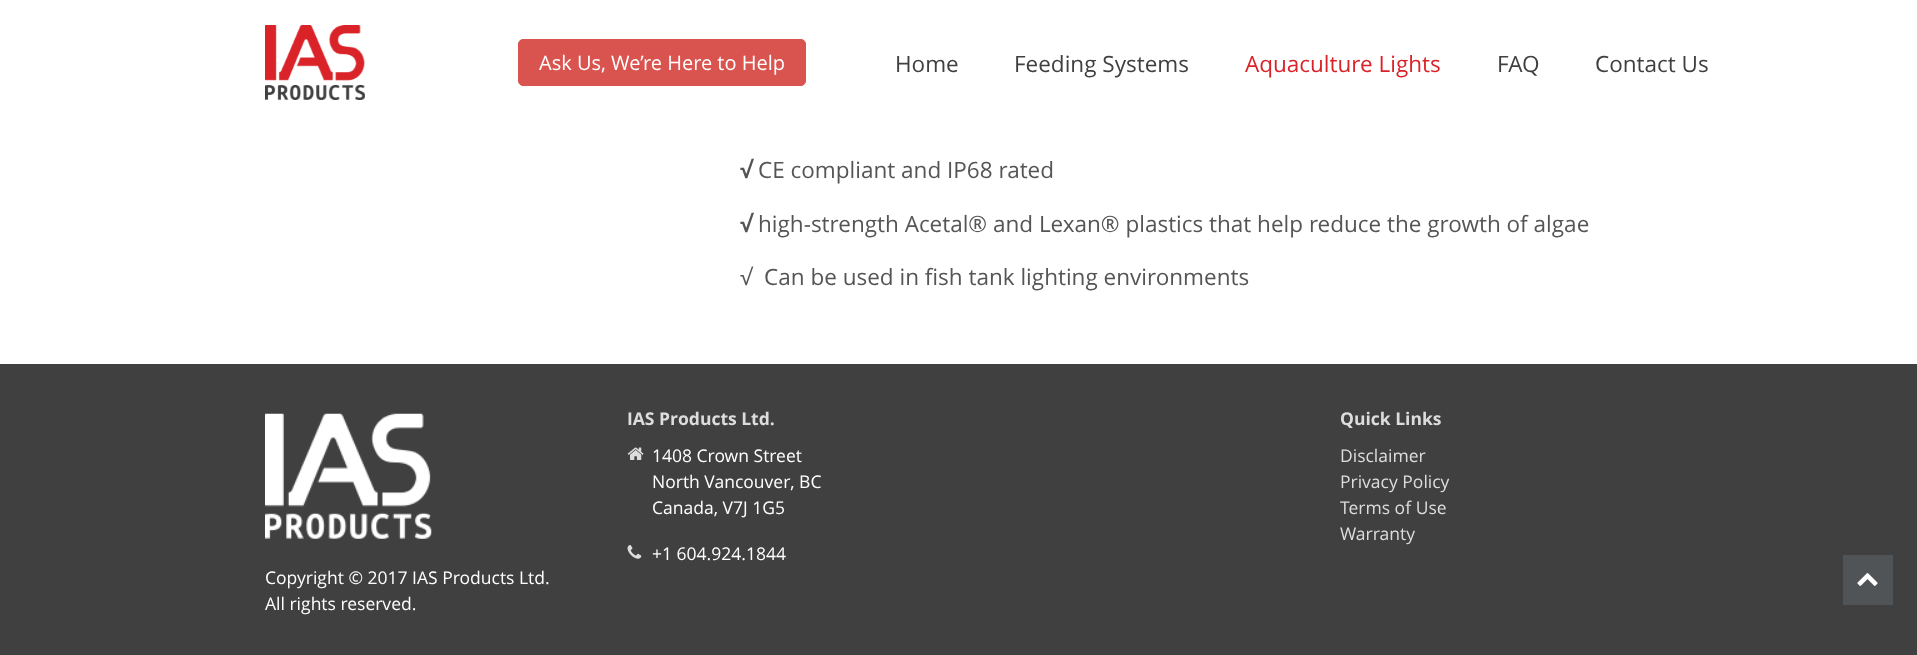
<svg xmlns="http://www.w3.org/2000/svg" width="1917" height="655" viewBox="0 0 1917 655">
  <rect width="100%" height="100%" fill="#fff"/>
  <image x="265" y="25" width="100" height="75" href="img/1.png"/>
  <rect x="518.5" y="39.5" width="287" height="46" rx="4.5" fill="#d9534f" stroke="#d9534f"/>
  <path d="M0 364h1917v291H0z" fill="#404040"/>
  <image x="627" y="447" width="17" height="13" href="img/2.png"/>
  <image x="627" y="545" width="15" height="14" href="img/3.png"/>
  <image x="265" y="413" width="167" height="126" href="img/4.png"/>
  <path d="M1843 555h50v50H1843z" fill="#515456"/>
  <image x="1857" y="573" width="21" height="13" href="img/5.png"/>
  <text x="539" y="70" font-family="Open Sans" font-size="20" fill="#fff">Ask Us, We’re Here to Help</text>
  <g font-family="Open Sans" font-size="22.5" fill="#404040">
    <text x="895" y="72">Home</text>
    <text x="1014" y="72">Feeding Systems</text>
  </g>
  <text x="1245" y="72" font-family="Open Sans" font-size="22.5" fill="#da2329">Aquaculture Lights</text>
  <g font-family="Open Sans" font-size="22.5" fill="#404040">
    <text x="1497" y="72">FAQ</text>
    <text x="1595" y="72">Contact Us</text>
  </g>
  <text x="740" y="178" font-family="Open Sans" font-size="22.5" font-weight="bold" fill="#555">√</text>
  <text x="758" y="178" font-family="Open Sans" font-size="22.5" fill="#555">CE compliant and IP68 rated</text>
  <text x="740" y="232" font-family="Open Sans" font-size="22.5" font-weight="bold" fill="#555">√</text>
  <g font-family="Open Sans" font-size="22.5" fill="#555">
    <text x="758" y="232">high-strength Acetal® and Lexan® plastics that help reduce the growth of algae</text>
    <text x="740" y="285" xml:space="preserve">√  Can be used in fish tank lighting environments</text>
  </g>
  <text x="627" y="425" font-family="Open Sans" font-size="17.5" font-weight="bold" fill="#ddd">IAS Products Ltd.</text>
  <g font-family="Open Sans" font-size="17.5" fill="#fff">
    <text x="652" y="462">1408 Crown Street</text>
    <text x="652" y="488">North Vancouver, BC</text>
    <text x="652" y="514">Canada, V7J 1G5</text>
    <text x="652" y="560">+1 604.924.1844</text>
  </g>
  <text x="1340" y="425" font-family="Open Sans" font-size="17.5" font-weight="bold" fill="#ddd">Quick Links</text>
  <g font-family="Open Sans" font-size="17.5" fill="#ddd">
    <text x="1340" y="462">Disclaimer</text>
    <text x="1340" y="488">Privacy Policy</text>
    <text x="1340" y="514">Terms of Use</text>
    <text x="1340" y="540">Warranty</text>
  </g>
  <g font-family="Open Sans" font-size="17.5" fill="#fff">
    <text x="265" y="584">Copyright © 2017 IAS Products Ltd.</text>
    <text x="265" y="610">All rights reserved.</text>
  </g>
</svg>
